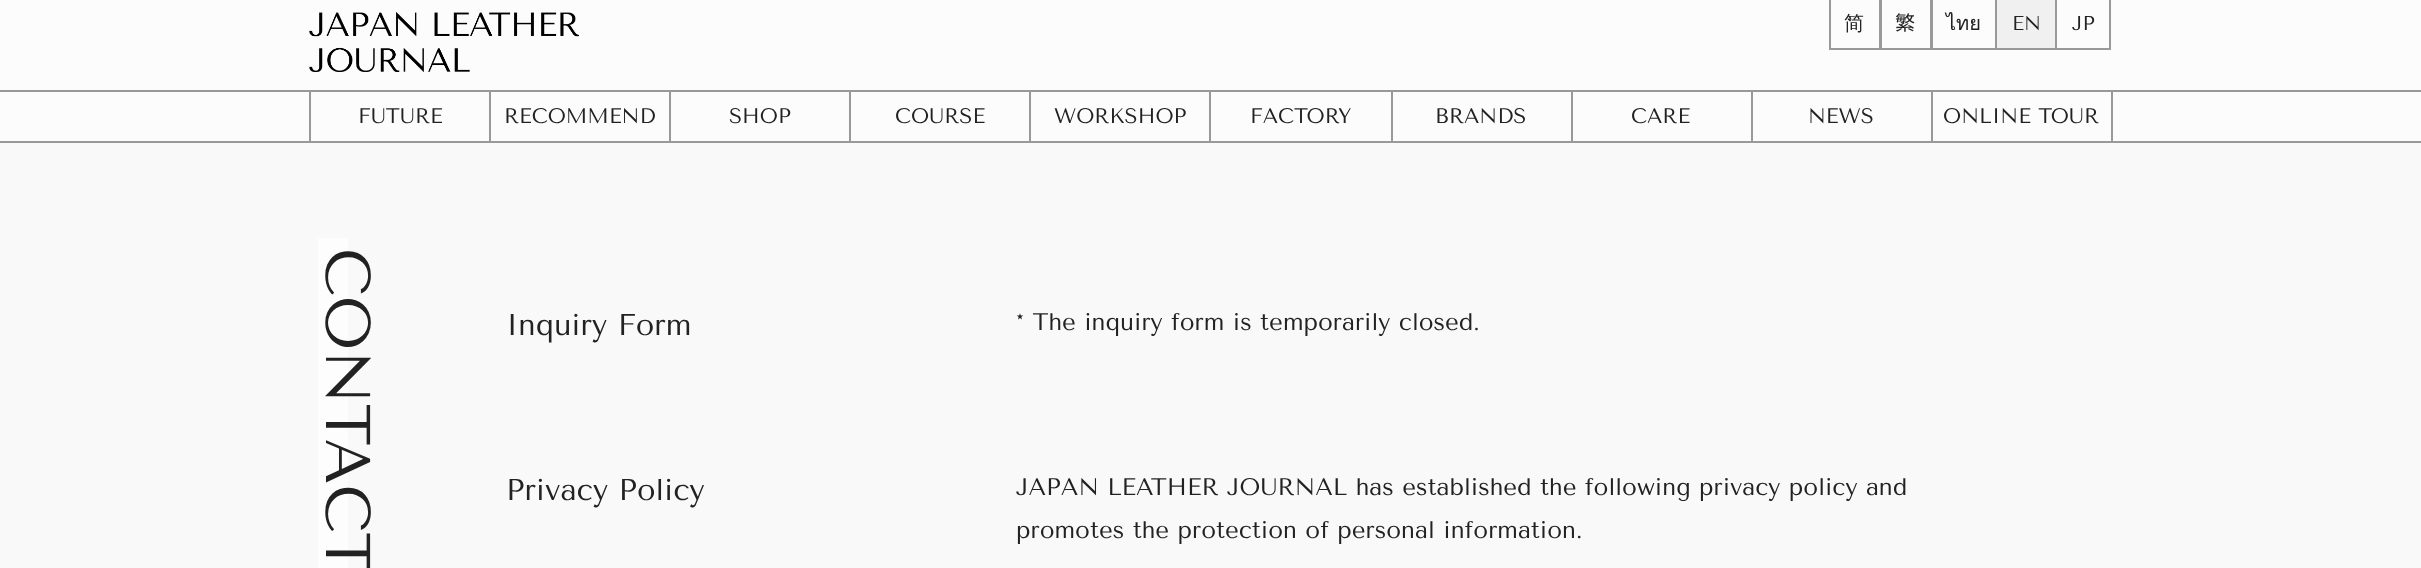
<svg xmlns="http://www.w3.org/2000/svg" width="2421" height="568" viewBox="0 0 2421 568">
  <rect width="100%" height="100%" fill="#f9f9f9"/>
  <path d="M0 0h2421v141H0z" fill="#fcfcfc"/>
  <path d="M0 90h2421v2H0z" fill="#999"/>
  <image x="309" y="12" width="270" height="60" href="img/1.png"/>
  <path d="M1830 -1h50v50H1830z" fill="none" stroke="#999" stroke-width="2"/>
  <path d="M1881 -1h50v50H1881z" fill="none" stroke="#999" stroke-width="2"/>
  <path d="M1932 -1h64v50H1932z" fill="none" stroke="#999" stroke-width="2"/>
  <path d="M1996 -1h60v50H1996z" fill="#f0f0f0" stroke="#999" stroke-width="2"/>
  <path d="M2056 -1h54v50H2056z" fill="none" stroke="#999" stroke-width="2"/>
  <path d="M0 141h2421v2H0z" fill="#999"/>
  <path d="M309 92h2v49H309z" fill="#999"/>
  <path d="M489 92h2v49H489z" fill="#999"/>
  <path d="M669 92h2v49H669z" fill="#999"/>
  <path d="M849 92h2v49H849z" fill="#999"/>
  <path d="M1029 92h2v49H1029z" fill="#999"/>
  <path d="M1209 92h2v49H1209z" fill="#999"/>
  <path d="M1391 92h2v49H1391z" fill="#999"/>
  <path d="M1571 92h2v49H1571z" fill="#999"/>
  <path d="M1751 92h2v49H1751z" fill="#999"/>
  <path d="M1931 92h2v49H1931z" fill="#999"/>
  <path d="M2111 92h2v49H2111z" fill="#999"/>
  <path d="M318 238h30v330H318z" fill="#fdfdfd"/>
  <text x="1844" y="30" font-family="WenQuanYi Zen Hei" font-size="20" font-weight="500" fill="#222">简</text>
  <text x="1895" y="30" font-family="Noto Sans JP" font-size="20" fill="#222">繁</text>
  <text x="1946" y="30" font-family="Loma" font-size="20" fill="#222">ไทย</text>
  <g font-family="Tenor Sans" font-size="20" fill="#222">
    <text x="2012" y="30">EN</text>
    <text x="2072" y="30">JP</text>
  </g>
  <g font-family="Tenor Sans" font-size="21" fill="#222">
    <text x="358" y="123">FUTURE</text>
    <text x="504" y="123">RECOMMEND</text>
    <text x="729" y="123">SHOP</text>
    <text x="895" y="123">COURSE</text>
    <text x="1054" y="123">WORKSHOP</text>
    <text x="1250" y="123">FACTORY</text>
    <text x="1435" y="123">BRANDS</text>
    <text x="1631" y="123">CARE</text>
    <text x="1808" y="123">NEWS</text>
    <text x="1943" y="123">ONLINE TOUR</text>
  </g>
  <text x="326" y="248" transform="rotate(90 326 248)" font-family="Tenor Sans" font-size="63" fill="#222">CONTACT</text>
  <text x="506" y="335" font-family="Tenor Sans" font-size="30" fill="#222">Inquiry Form</text>
  <text x="1016" y="330" font-family="Tenor Sans" font-size="24" fill="#222">* The inquiry form is temporarily closed.</text>
  <text x="506" y="500" font-family="Tenor Sans" font-size="30" fill="#222">Privacy Policy</text>
  <g font-family="Tenor Sans" font-size="24" fill="#222">
    <text x="1016" y="495">JAPAN LEATHER JOURNAL has established the following privacy policy and</text>
    <text x="1016" y="538">promotes the protection of personal information.</text>
  </g>
</svg>
